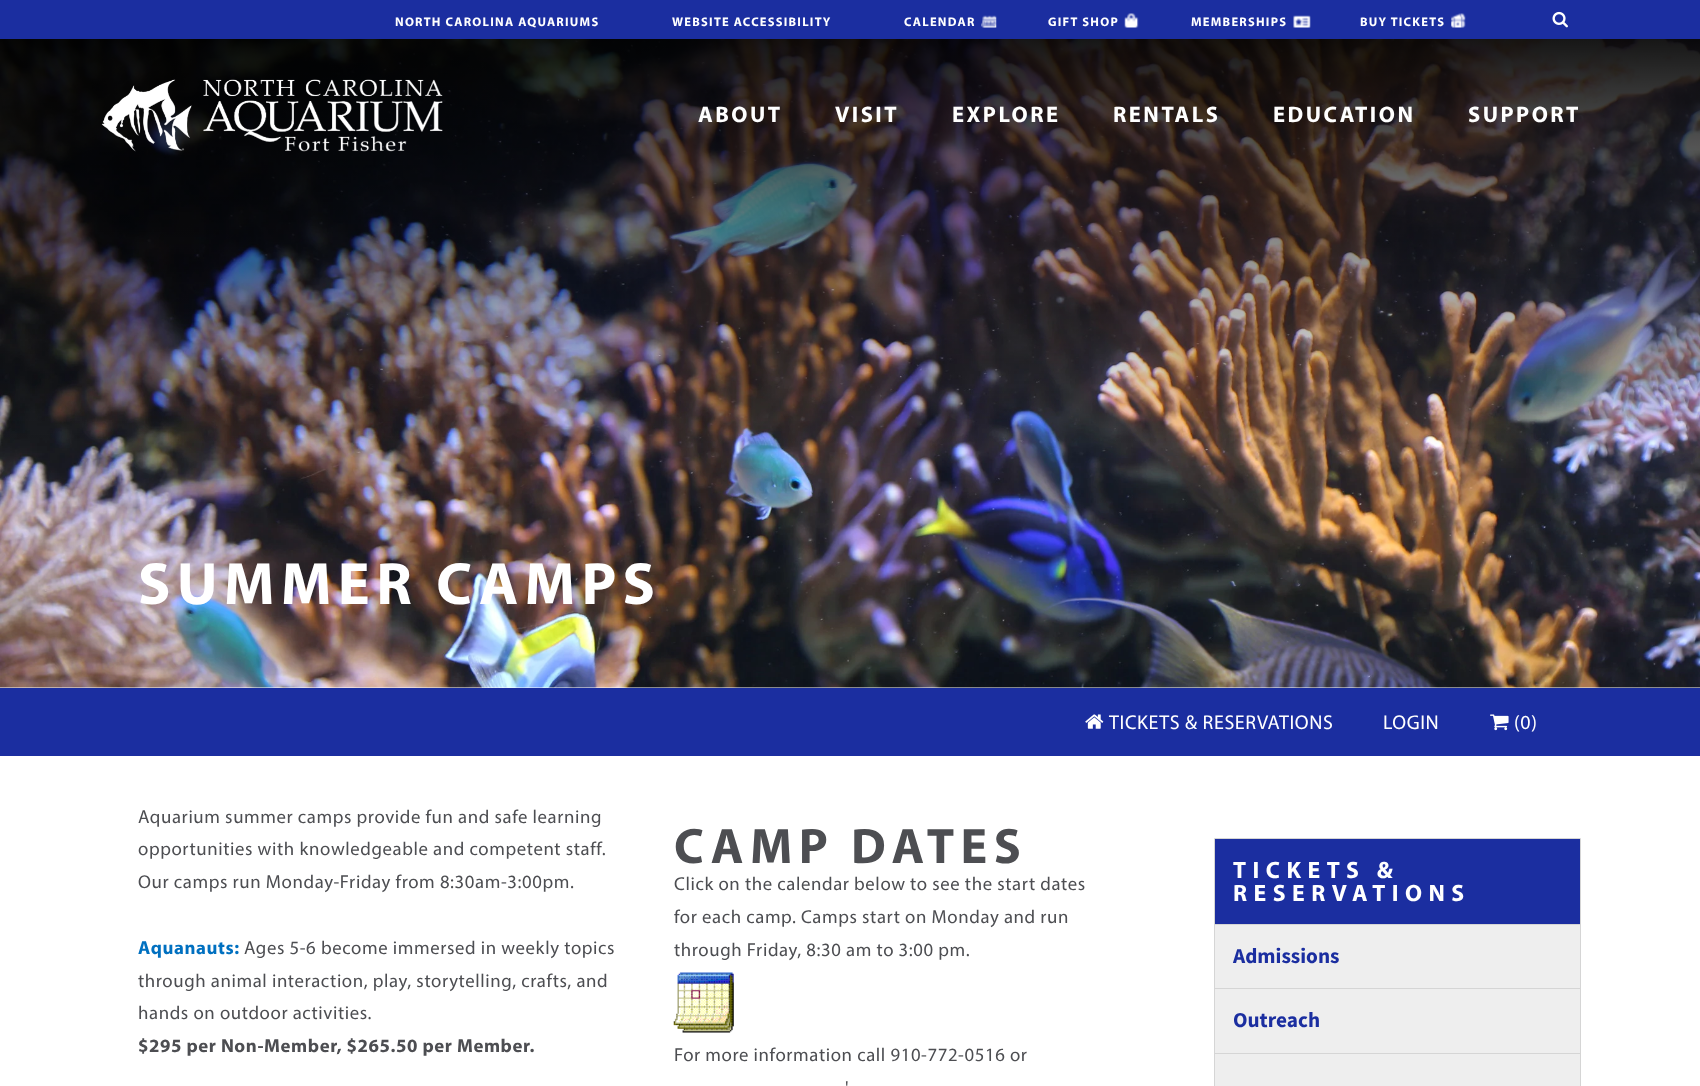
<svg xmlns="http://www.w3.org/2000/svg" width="1700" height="1086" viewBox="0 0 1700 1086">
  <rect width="100%" height="100%" fill="#fff"/>
  <path d="M0 0h1700v39H0z" fill="#1b2ea0"/>
  <image x="981" y="15" width="16" height="13" href="img/1.png"/>
  <image x="1124" y="13" width="15" height="15" href="img/2.png"/>
  <image x="1293" y="15" width="18" height="13" href="img/3.png"/>
  <image x="1451" y="13" width="15" height="15" href="img/4.png"/>
  <image x="1552" y="11" width="16" height="17" href="img/5.png"/>
  <image x="0" y="39" width="1700" height="649" href="img/7.png"/>
  <image x="101" y="79" width="342" height="73" href="img/6.png"/>
  <path d="M0 688h1700v68H0z" fill="#1b2ea0"/>
  <image x="1085" y="714" width="19" height="15" href="img/8.png"/>
  <image x="1490" y="714" width="19" height="17" href="img/9.png"/>
  <image x="673" y="972" width="61" height="61" href="img/10.png"/>
  <path d="M1215 925h365v161H1215z" fill="#eee"/>
  <path d="M1214.5 838.5h366v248H1214.5z" fill="none" stroke="#d5d5d5"/>
  <path d="M1215 839h365v85H1215z" fill="#1b2ea0"/>
  <path d="M1215 924h365v1H1215z" fill="#d5d5d5"/>
  <path d="M1215 988h365v1H1215z" fill="#d5d5d5"/>
  <path d="M1215 1053h365v1H1215z" fill="#d5d5d5"/>
  <g font-family="Myriad" font-size="12.5" font-weight="bold" letter-spacing="1.25" fill="#fff">
    <text x="395" y="26">NORTH CAROLINA AQUARIUMS</text>
    <text x="672" y="26">WEBSITE ACCESSIBILITY</text>
    <text x="904" y="26">CALENDAR</text>
    <text x="1048" y="26">GIFT SHOP</text>
    <text x="1191" y="26">MEMBERSHIPS</text>
    <text x="1360" y="26">BUY TICKETS</text>
  </g>
  <g font-family="Myriad" font-size="22.5" font-weight="bold" letter-spacing="2.5" fill="#fff">
    <text x="698" y="122">ABOUT</text>
    <text x="835" y="122">VISIT</text>
    <text x="952" y="122">EXPLORE</text>
    <text x="1113" y="122">RENTALS</text>
    <text x="1273" y="122">EDUCATION</text>
    <text x="1468" y="122">SUPPORT</text>
  </g>
  <text x="138" y="604" font-family="Myriad" font-size="60" font-weight="bold" letter-spacing="6.25" fill="#fff">SUMMER CAMPS</text>
  <g font-family="Myriad" font-size="20" letter-spacing="0.6" fill="#fff">
    <text x="1109" y="729">TICKETS &amp; RESERVATIONS</text>
    <text x="1383" y="729">LOGIN</text>
    <text x="1514" y="729">(0)</text>
  </g>
  <g font-family="Myriad" font-size="18.75" letter-spacing="0.6" fill="#4d4e52">
    <text x="138" y="823">Aquarium summer camps provide fun and safe learning</text>
    <text x="138" y="855">opportunities with knowledgeable and competent staff.</text>
    <text x="138" y="888">Our camps run Monday-Friday from 8:30am-3:00pm.</text>
  </g>
  <text x="138" y="954" font-family="Myriad" font-size="18.75" font-weight="bold" letter-spacing="0.6" fill="#0070c0">Aquanauts:</text>
  <g font-family="Myriad" font-size="18.75" letter-spacing="0.6" fill="#4d4e52">
    <text x="244" y="954">Ages 5-6 become immersed in weekly topics</text>
    <text x="138" y="987">through animal interaction, play, storytelling, crafts, and</text>
    <text x="138" y="1019">hands on outdoor activities.</text>
  </g>
  <text x="138" y="1052" font-family="Myriad" font-size="18.75" font-weight="bold" letter-spacing="0.6" fill="#4d4e52">$295 per Non-Member, $265.50 per Member.</text>
  <text x="674" y="863" font-family="Myriad" font-size="50" font-weight="bold" letter-spacing="6.5" fill="#4d4e52">CAMP DATES</text>
  <g font-family="Myriad" font-size="18.75" letter-spacing="0.6" fill="#4d4e52">
    <text x="674" y="890">Click on the calendar below to see the start dates</text>
    <text x="674" y="923">for each camp. Camps start on Monday and run</text>
    <text x="674" y="956">through Friday, 8:30 am to 3:00 pm.</text>
    <text x="674" y="1061">For more information call 910-772-0516 or</text>
    <text x="845" y="1094">'</text>
  </g>
  <g font-family="Myriad" font-size="23.75" font-weight="bold" letter-spacing="6.5" fill="#fff">
    <text x="1233" y="878">TICKETS &amp;</text>
    <text x="1233" y="901">RESERVATIONS</text>
  </g>
  <g font-family="Source Sans Pro" font-size="21.25" font-weight="bold" fill="#1b2ea0">
    <text x="1233" y="963">Admissions</text>
    <text x="1233" y="1027">Outreach</text>
  </g>
</svg>
